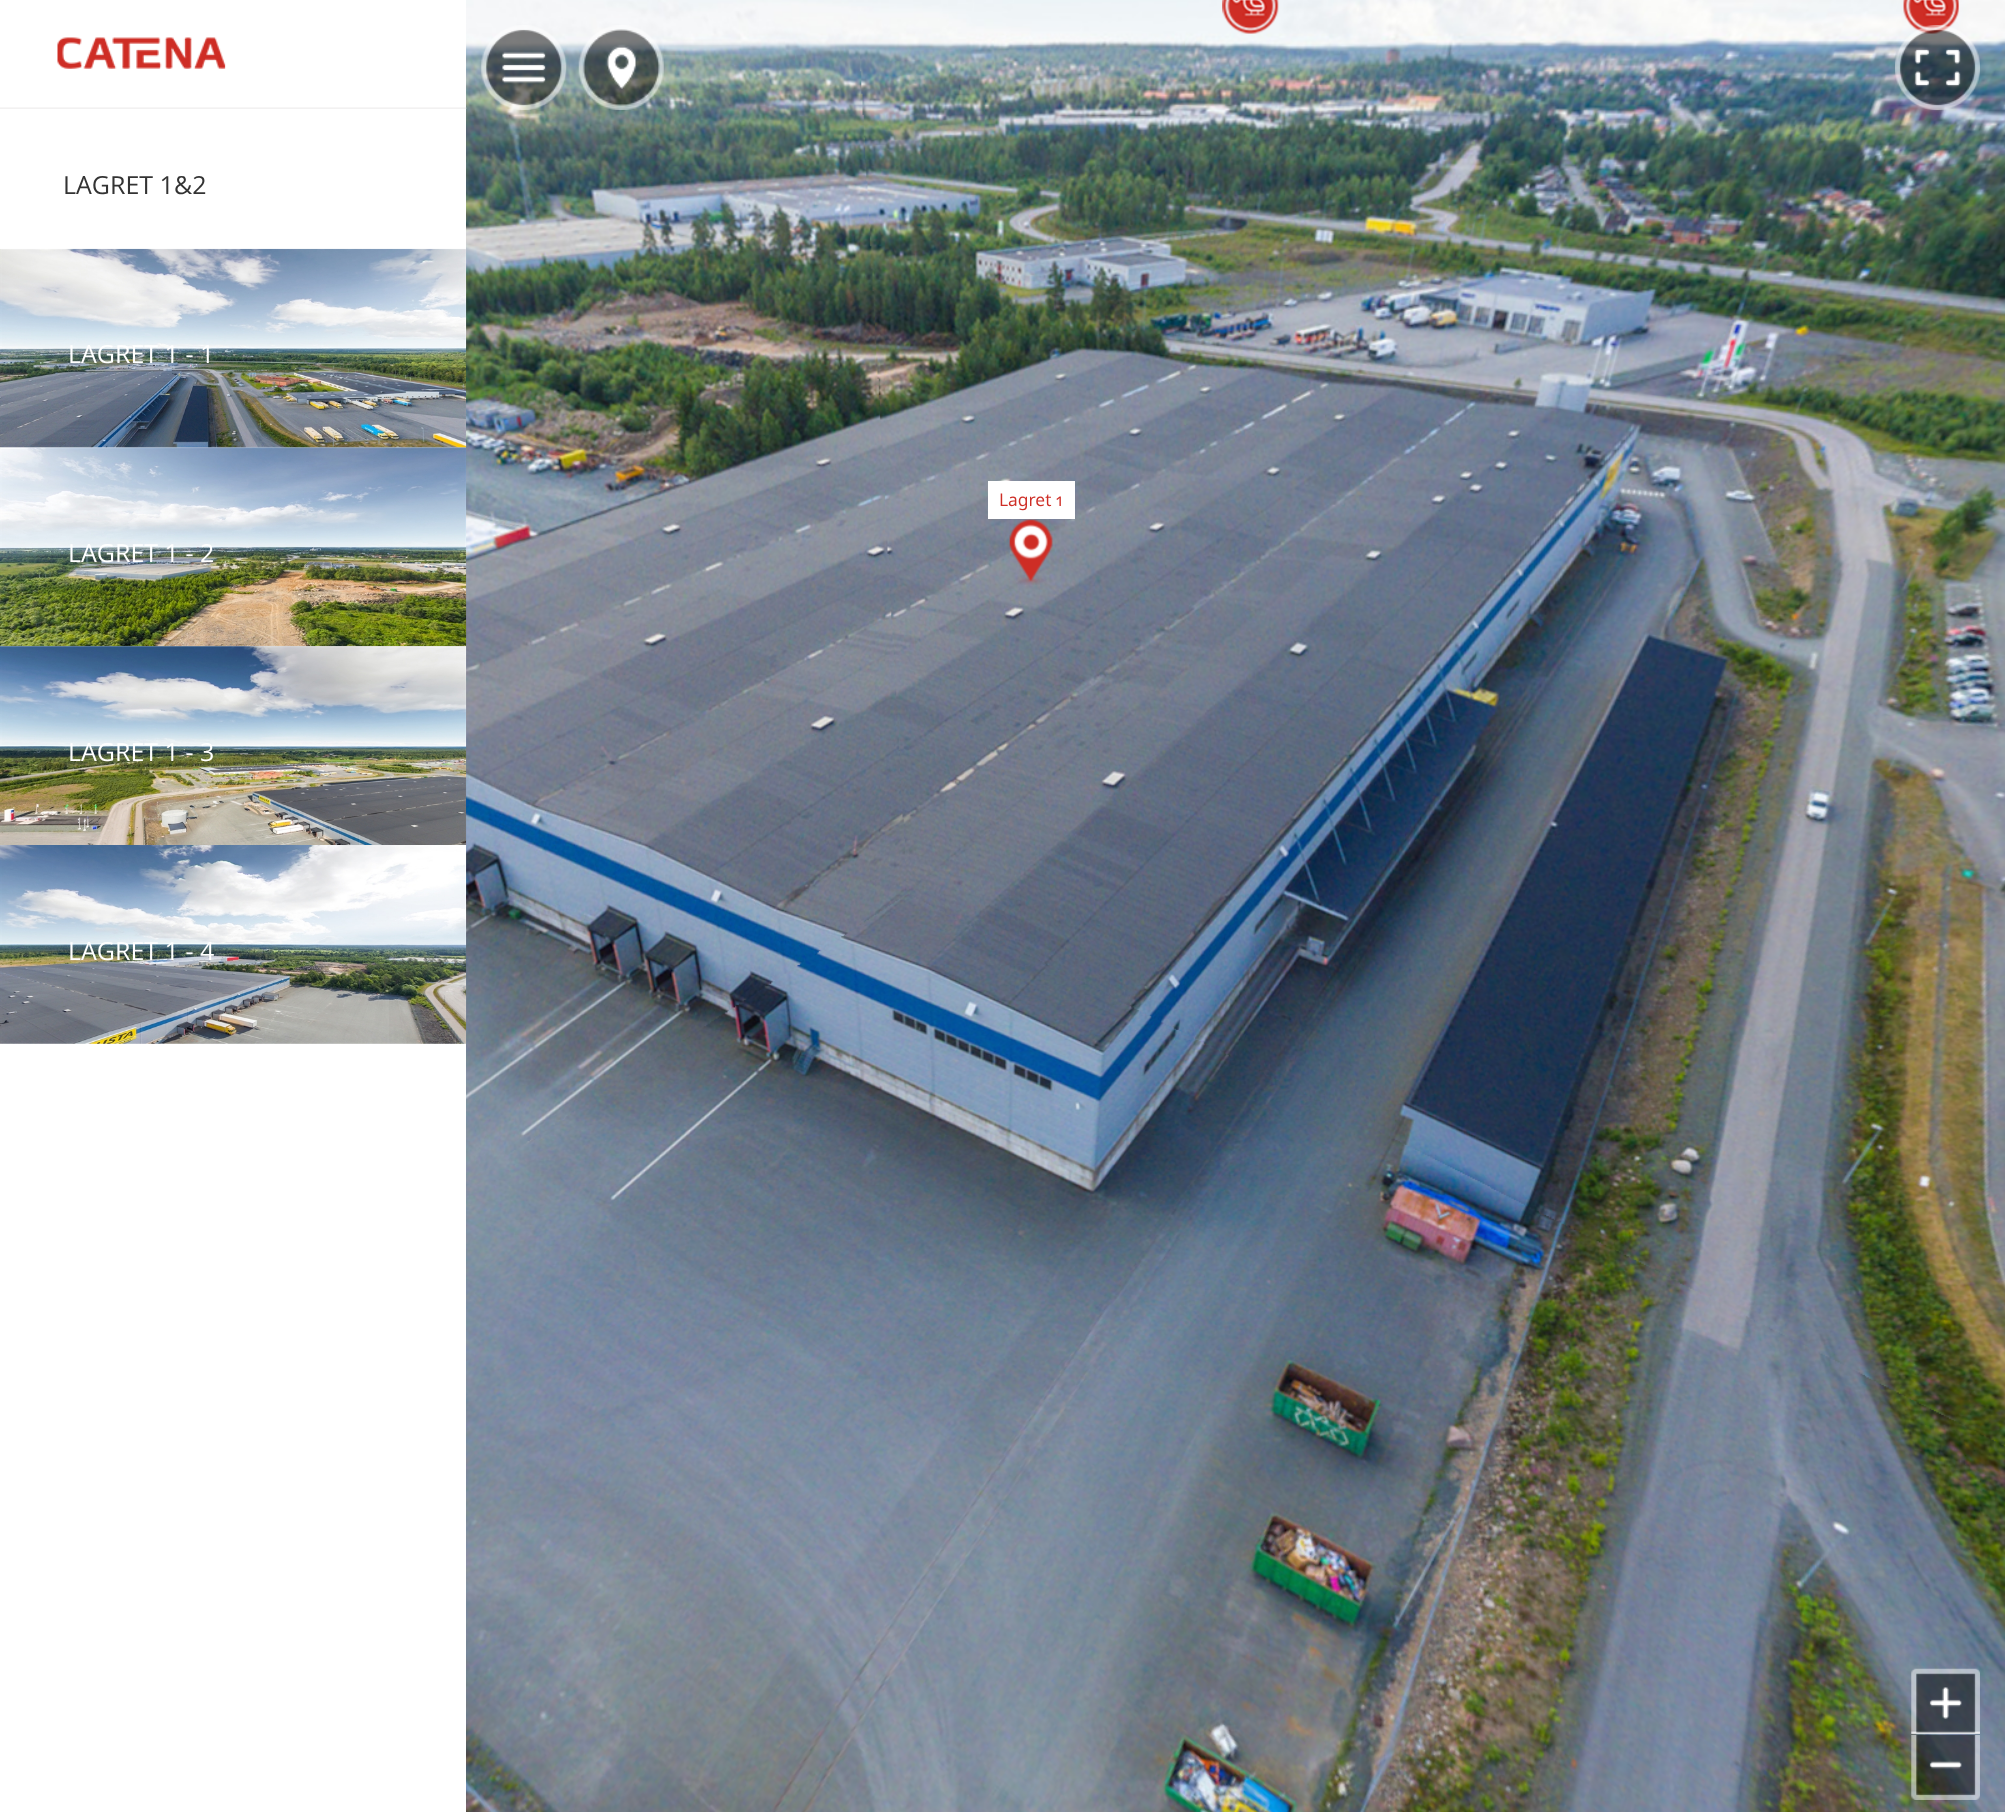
<svg xmlns="http://www.w3.org/2000/svg" width="2005" height="1812" viewBox="0 0 2005 1812">
  <rect width="100%" height="100%" fill="#fff"/>
  <image x="466" y="0" width="1539" height="1812" href="img/11.png"/>
  <image x="1903" y="0" width="56" height="34" href="img/13.png"/>
  <image x="1895" y="25" width="85" height="85" href="img/1.png"/>
  <image x="0" y="37" width="467" height="72" href="img/2.png"/>
  <image x="481" y="25" width="86" height="85" href="img/3.png"/>
  <image x="578" y="25" width="86" height="85" href="img/4.png"/>
  <image x="0" y="248" width="467" height="200" href="img/5.png"/>
  <image x="0" y="447" width="467" height="200" href="img/6.png"/>
  <image x="0" y="646" width="467" height="199" href="img/7.png"/>
  <image x="0" y="845" width="467" height="199" href="img/8.png"/>
  <image x="1911" y="1668" width="69" height="66" href="img/9.png"/>
  <image x="1911" y="1735" width="69" height="65" href="img/10.png"/>
  <image x="1222" y="0" width="57" height="34" href="img/12.png"/>
  <path d="M988 481h87v38H988z" fill="#fff"/>
  <image x="1009" y="519" width="44" height="66" href="img/14.png"/>
  <text x="63" y="194" font-family="'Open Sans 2'" font-size="25" fill="#333">LAGRET 1&amp;2</text>
  <g font-family="'Open Sans 2'" font-size="25" fill="#fff">
    <text x="68" y="363">LAGRET 1 - 1</text>
    <text x="68" y="562">LAGRET 1 - 2</text>
    <text x="68" y="761">LAGRET 1 - 3</text>
    <text x="68" y="960">LAGRET 1 - 4</text>
  </g>
  <text x="999" y="506" font-family="Open Sans" font-size="17.5" fill="#ce2d25">Lagret 1</text>
</svg>
